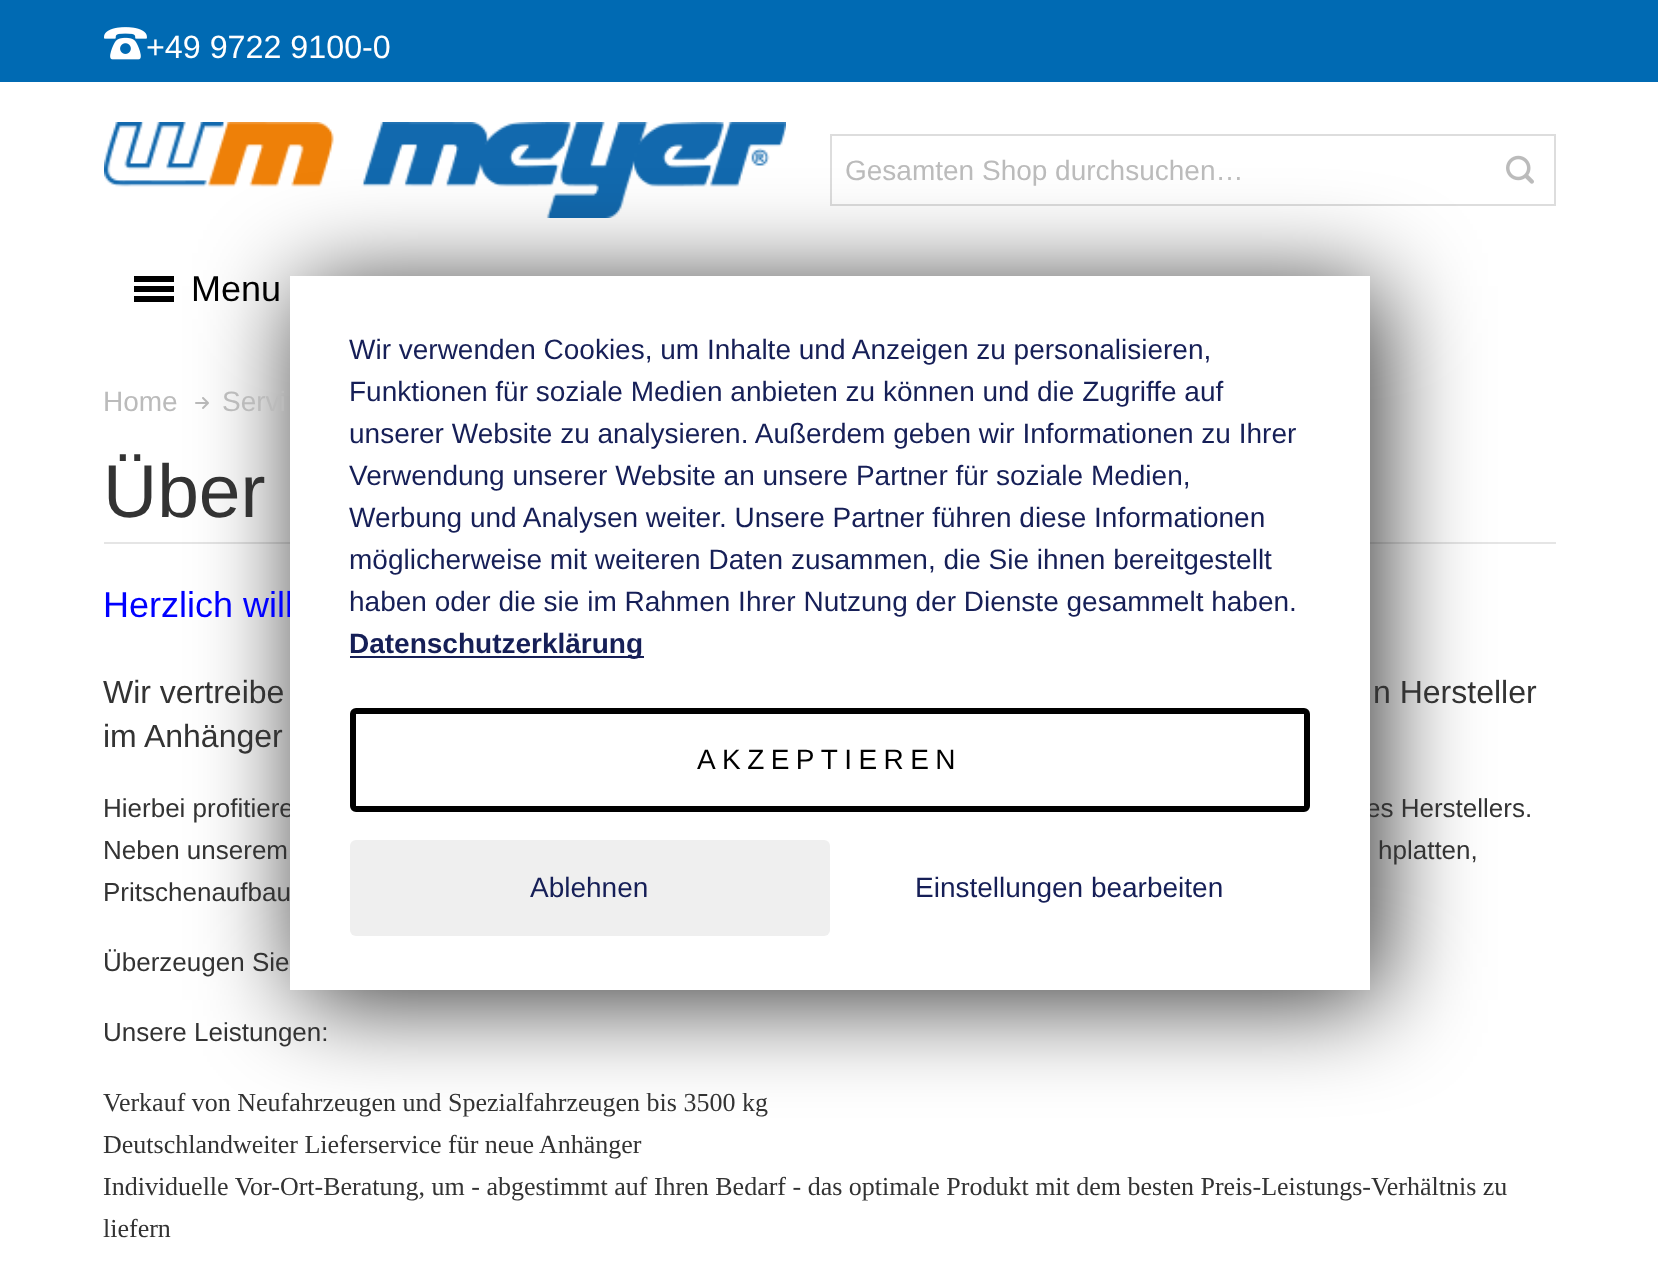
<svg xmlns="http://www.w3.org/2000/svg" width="1658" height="1263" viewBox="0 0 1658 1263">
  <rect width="100%" height="100%" fill="#fff"/>
  <path d="M0 0h1658v82H0z" fill="#006ab3"/>
  <image x="104" y="27" width="43" height="33" href="img/1.png"/>
  <image x="104" y="122" width="682" height="96" href="img/2.png"/>
  <path d="M831 135h724v70H831z" fill="none" stroke="#ddd" stroke-width="2"/>
  <image x="1506" y="155" width="28" height="29" href="img/3.png"/>
  <path d="M134 276h40v6H134z" fill="#000"/>
  <path d="M134 286h40v6H134z" fill="#000"/>
  <path d="M134 296h40v6H134z" fill="#000"/>
  <image x="195" y="397" width="14" height="12" href="img/4.png"/>
  <path d="M104 542h1452v2H104z" fill="#e5e5e5"/>
  <path d="M300 286h1080v714H300z" fill="#000000cc" filter="blur(50px)"/>
  <text x="146" y="58" font-family="Liberation Sans" font-size="32.25" fill="#fff">+49 9722 9100-0</text>
  <text x="845" y="180" font-family="Liberation Sans" font-size="28" fill="#bbb">Gesamten Shop durchsuchen…</text>
  <text x="191" y="301" font-family="Liberation Sans" font-size="36" fill="#000">Menu</text>
  <g font-family="Liberation Sans" font-size="28" fill="#bbb">
    <text x="103" y="411">Home</text>
    <text x="222" y="411">Servi</text>
  </g>
  <text x="103" y="517" font-family="Liberation Sans" font-size="75" fill="#333">Über</text>
  <text x="103" y="617" font-family="Liberation Sans" font-size="36" fill="#00f">Herzlich will</text>
  <g font-family="Liberation Sans" font-size="32" fill="#333">
    <text x="103" y="703">Wir vertreibe</text>
    <text x="1373" y="703">n Hersteller</text>
    <text x="103" y="747">im Anhänger</text>
  </g>
  <g font-family="Liberation Sans" font-size="26" fill="#333">
    <text x="103" y="817">Hierbei profitiere</text>
    <text x="1366" y="817">es Herstellers.</text>
    <text x="103" y="859">Neben unserem</text>
    <text x="1378" y="859">hplatten,</text>
    <text x="103" y="901">Pritschenaufbau</text>
    <text x="103" y="971">Überzeugen Sie</text>
    <text x="103" y="1041">Unsere Leistungen:</text>
  </g>
  <g font-family="Liberation Serif" font-size="26" fill="#333">
    <text x="103" y="1111">Verkauf von Neufahrzeugen und Spezialfahrzeugen bis 3500 kg</text>
    <text x="103" y="1153">Deutschlandweiter Lieferservice für neue Anhänger</text>
    <text x="103" y="1195">Individuelle Vor-Ort-Beratung, um - abgestimmt auf Ihren Bedarf - das optimale Produkt mit dem besten Preis-Leistungs-Verhältnis zu</text>
    <text x="103" y="1237">liefern</text>
  </g>
  <path d="M290 276h1080v714H290z" fill="#fff"/>
  <g font-family="Liberation Sans" font-size="28" fill="#161f57">
    <text x="349" y="359">Wir verwenden Cookies, um Inhalte und Anzeigen zu personalisieren,</text>
    <text x="349" y="401">Funktionen für soziale Medien anbieten zu können und die Zugriffe auf</text>
    <text x="349" y="443">unserer Website zu analysieren. Außerdem geben wir Informationen zu Ihrer</text>
    <text x="349" y="485">Verwendung unserer Website an unsere Partner für soziale Medien,</text>
    <text x="349" y="527">Werbung und Analysen weiter. Unsere Partner führen diese Informationen</text>
    <text x="349" y="569">möglicherweise mit weiteren Daten zusammen, die Sie ihnen bereitgestellt</text>
    <text x="349" y="611">haben oder die sie im Rahmen Ihrer Nutzung der Dienste gesammelt haben.</text>
  </g>
  <path d="M350 656h294v2H350z" fill="#161f57"/>
  <text x="349" y="653" font-family="Liberation Sans" font-size="28" font-weight="bold" fill="#161f57">Datenschutzerklärung</text>
  <rect x="353" y="711" width="954" height="98" rx="3" fill="none" stroke="#000" stroke-width="6"/>
  <text x="697" y="769" font-family="Liberation Sans" font-size="28" letter-spacing="6.4" fill="#000">AKZEPTIEREN</text>
  <rect x="350" y="840" width="480" height="96" rx="6" fill="#efefef"/>
  <g font-family="Liberation Sans" font-size="28" fill="#161f57">
    <text x="530" y="897">Ablehnen</text>
    <text x="915" y="897">Einstellungen bearbeiten</text>
  </g>
</svg>
